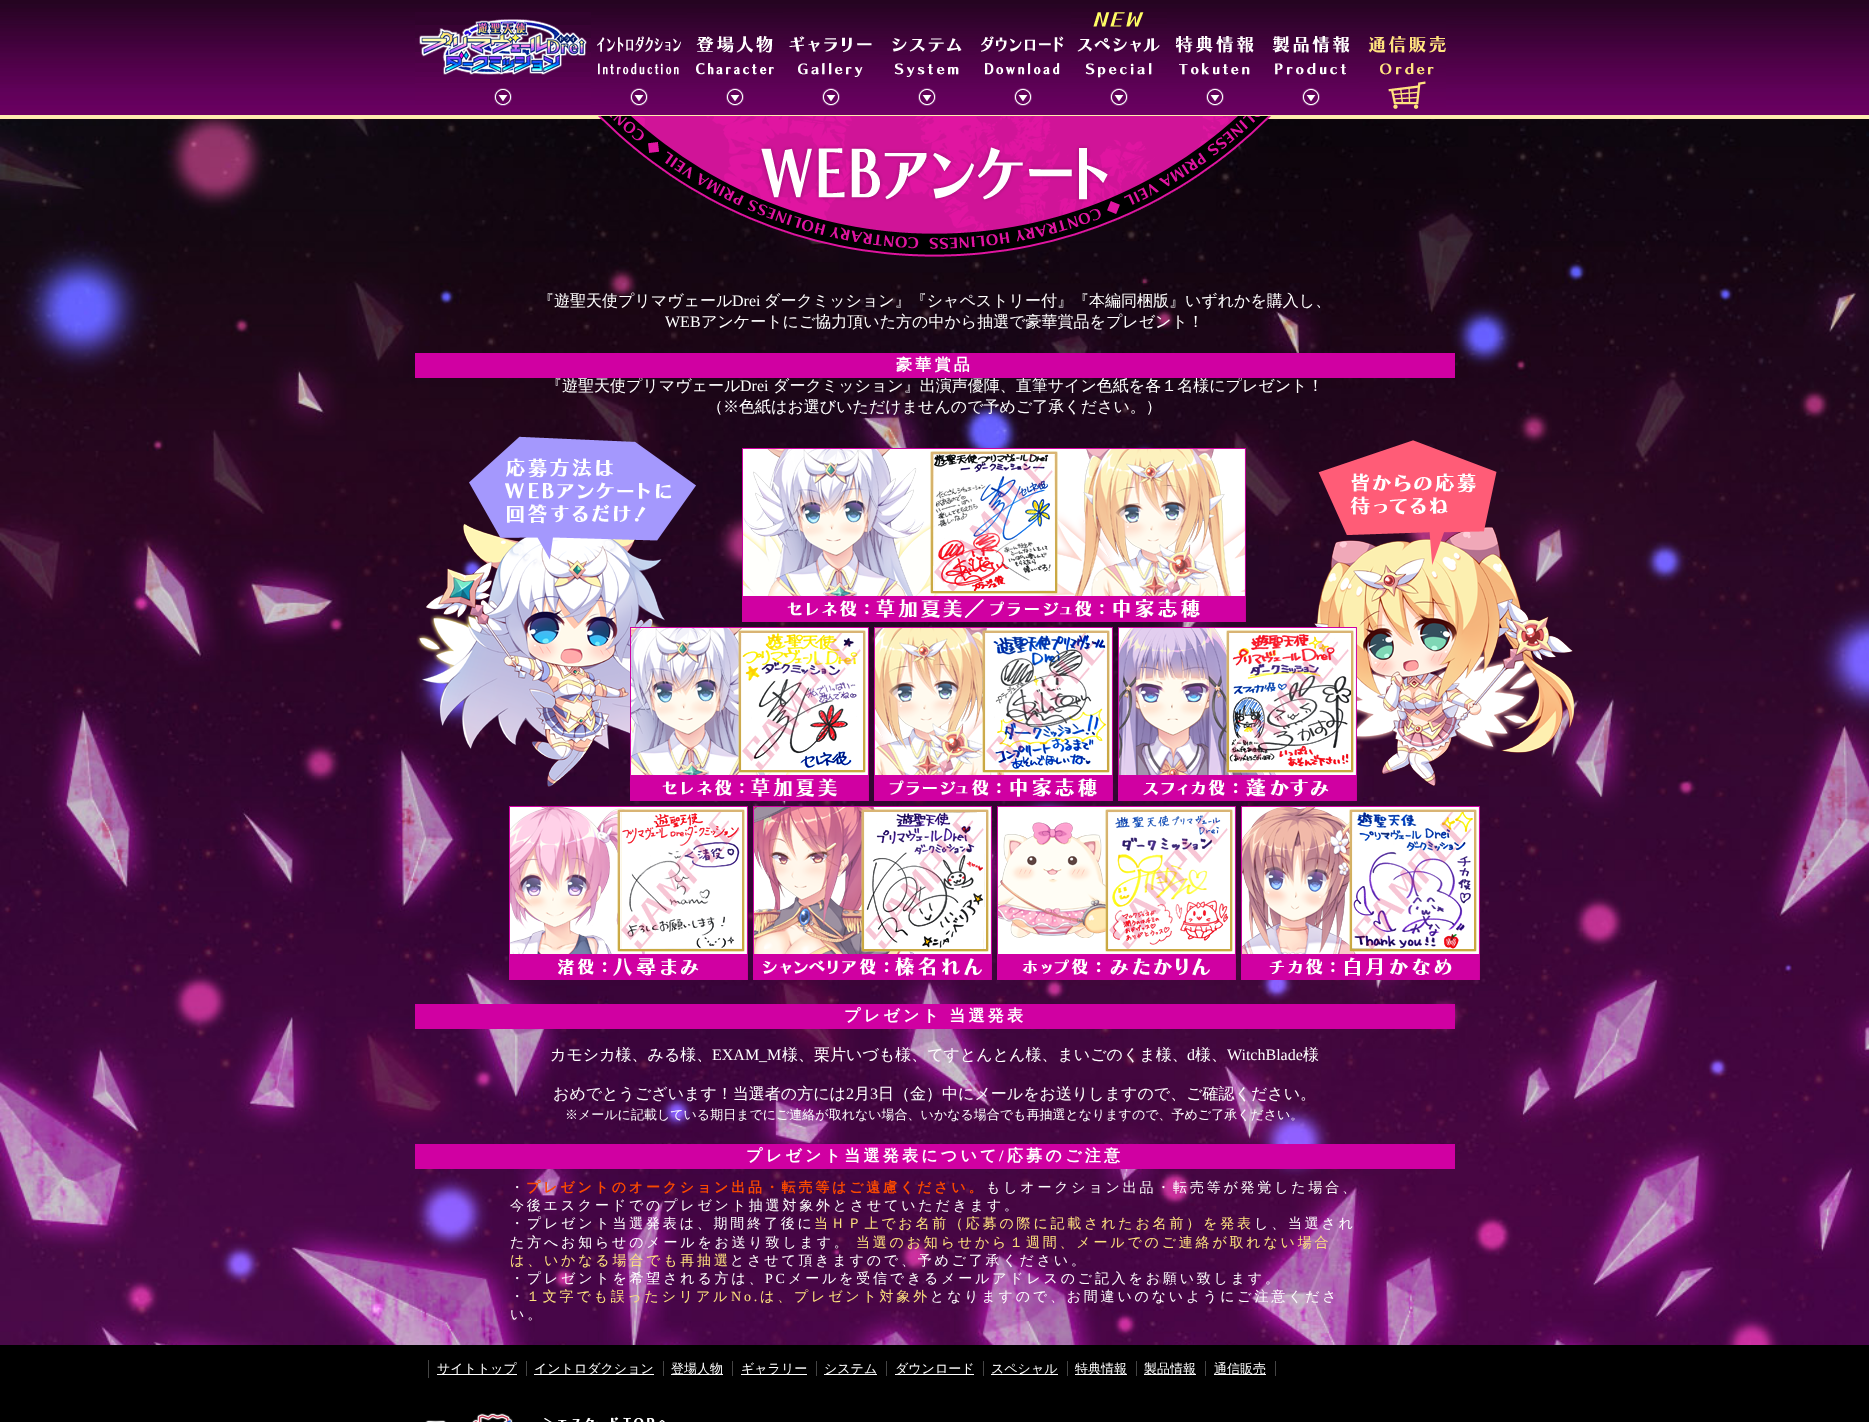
<svg xmlns="http://www.w3.org/2000/svg" width="1869" height="1422" viewBox="0 0 1869 1422">
  <rect width="100%" height="100%" fill="#fff"/>
  <image x="0" y="119" width="1869" height="1226" href="img/1.png"/>
  <image x="0" y="0" width="1869" height="119" href="img/2.png"/>
  <image x="415" y="12" width="1031" height="97" href="img/3.png"/>
  <image x="598" y="116" width="673" height="141" href="img/4.png"/>
  <image x="416" y="436" width="1158" height="544" href="img/5.png"/>
  <path d="M415 1004h1040v25H415z" fill="#d000a2"/>
  <path d="M415 1144h1040v25H415z" fill="#d000a2"/>
  <path d="M0 1345h1869v77H0z" fill="#000"/>
  <path d="M428 1360h1v18H428z" fill="#444"/>
  <path d="M526 1361h1v15H526z" fill="#444"/>
  <path d="M437 1374h80v1H437z" fill="#fff"/>
  <path d="M663 1361h1v15H663z" fill="#444"/>
  <path d="M534 1374h120v1H534z" fill="#fff"/>
  <path d="M732 1361h1v15H732z" fill="#444"/>
  <path d="M671 1374h52v1H671z" fill="#fff"/>
  <path d="M816 1361h1v15H816z" fill="#444"/>
  <path d="M741 1374h66v1H741z" fill="#fff"/>
  <path d="M886 1361h1v15H886z" fill="#444"/>
  <path d="M824 1374h53v1H824z" fill="#fff"/>
  <path d="M983 1361h1v15H983z" fill="#444"/>
  <path d="M895 1374h79v1H895z" fill="#fff"/>
  <path d="M1067 1361h1v15H1067z" fill="#444"/>
  <path d="M991 1374h67v1H991z" fill="#fff"/>
  <path d="M1136 1361h1v15H1136z" fill="#444"/>
  <path d="M1075 1374h52v1H1075z" fill="#fff"/>
  <path d="M1205 1361h1v15H1205z" fill="#444"/>
  <path d="M1144 1374h52v1H1144z" fill="#fff"/>
  <path d="M1275 1361h1v15H1275z" fill="#444"/>
  <path d="M1214 1374h52v1H1214z" fill="#fff"/>
  <image x="425" y="1413" width="240" height="9" href="img/6.png"/>
  <text x="538" y="306" font-family="WenQuanYi Zen Hei" font-size="16" font-weight="500" fill="#fff">『遊聖天使プリマヴェール</text>
  <text x="732" y="306" font-family="Liberation Serif" font-size="16" fill="#fff">Drei</text>
  <text x="764" y="306" font-family="WenQuanYi Zen Hei" font-size="16" font-weight="500" fill="#fff">ダークミッション』『シャペストリー付』『本編同梱版』いずれかを購入し、</text>
  <text x="665" y="327" font-family="Liberation Serif" font-size="16" fill="#fff">WEB</text>
  <g font-family="WenQuanYi Zen Hei" font-size="16" font-weight="500" fill="#fff">
    <text x="701" y="327">アンケートにご協力頂いた方の中から抽選で豪華賞品をプレゼント！</text>
    <text x="546" y="391">『遊聖天使プリマヴェール</text>
  </g>
  <text x="740" y="391" font-family="Liberation Serif" font-size="16" fill="#fff">Drei</text>
  <text x="773" y="391" font-family="WenQuanYi Zen Hei" font-size="16" font-weight="500" fill="#fff">ダークミッション』出演声優陣、直筆サイン色紙を各１名様にプレゼント！</text>
  <path d="M415 353h1040v25H415z" fill="#d000a2"/>
  <text x="896" y="370" font-family="WenQuanYi Zen Hei" font-size="16" font-weight="bold" letter-spacing="3.25" fill="#fff">豪華賞品</text>
  <text x="707" y="412" font-family="WenQuanYi Zen Hei" font-size="16" font-weight="500" fill="#fff">（※色紙はお選びいただけませんので予めご了承ください。）</text>
  <text x="844" y="1021" word-spacing="-1" font-family="WenQuanYi Zen Hei" font-size="16" font-weight="bold" letter-spacing="3.25" fill="#fff">プレゼント 当選発表</text>
  <text x="550" y="1060" font-family="WenQuanYi Zen Hei" font-size="16" font-weight="500" fill="#fff">カモシカ様、みる様、</text>
  <text x="712" y="1060" font-family="Liberation Serif" font-size="16" fill="#fff">EXAM_M</text>
  <text x="782" y="1060" font-family="WenQuanYi Zen Hei" font-size="16" font-weight="500" fill="#fff">様、栗片いづも様、てすとんとん様、まいごのくま様、</text>
  <text x="1187" y="1060" font-family="Liberation Serif" font-size="16" fill="#fff">d</text>
  <text x="1195" y="1060" font-family="WenQuanYi Zen Hei" font-size="16" font-weight="500" fill="#fff">様、</text>
  <text x="1227" y="1060" font-family="Liberation Serif" font-size="16" fill="#fff">WitchBlade</text>
  <g font-family="WenQuanYi Zen Hei" font-size="16" font-weight="500" fill="#fff">
    <text x="1303" y="1060">様</text>
    <text x="553" y="1099">おめでとうございます！当選者の方には</text>
  </g>
  <text x="846" y="1099" font-family="Liberation Serif" font-size="16" fill="#fff">2</text>
  <text x="854" y="1099" font-family="WenQuanYi Zen Hei" font-size="16" font-weight="500" fill="#fff">月</text>
  <text x="870" y="1099" font-family="Liberation Serif" font-size="16" fill="#fff">3</text>
  <text x="878" y="1099" font-family="WenQuanYi Zen Hei" font-size="16" font-weight="500" fill="#fff">日（金）中にメールをお送りしますので、ご確認ください。</text>
  <text x="565" y="1119" font-family="WenQuanYi Zen Hei" font-size="13" font-weight="500" fill="#fff">※メールに記載している期日までにご連絡が取れない場合、いかなる場合でも再抽選となりますので、予めご了承ください。</text>
  <text x="746" y="1161" font-family="WenQuanYi Zen Hei" font-size="16" font-weight="bold" letter-spacing="3.25" fill="#fff">プレゼント当選発表について</text>
  <text x="999" y="1161" font-family="Liberation Serif" font-size="16" font-weight="bold" letter-spacing="3.25" fill="#fff">/</text>
  <text x="1007" y="1161" font-family="WenQuanYi Zen Hei" font-size="16" font-weight="bold" letter-spacing="3.25" fill="#fff">応募のご注意</text>
  <text x="510" y="1192" font-family="WenQuanYi Zen Hei" font-size="14" font-weight="500" letter-spacing="2.8" fill="#fff">・</text>
  <text x="526" y="1192" font-family="WenQuanYi Zen Hei" font-size="14" font-weight="bold" letter-spacing="2.8" fill="#f94900">プレゼントのオークション出品・転売等はご遠慮ください。</text>
  <g font-family="WenQuanYi Zen Hei" font-size="14" font-weight="500" letter-spacing="2.8" fill="#fff">
    <text x="986" y="1192">もしオークション出品・転売等が発覚した場合、</text>
    <text x="510" y="1210">今後エスクードでのプレゼント抽選対象外とさせていただきます。</text>
    <text x="510" y="1228">・プレゼント当選発表は、期間終了後に</text>
  </g>
  <text x="814" y="1228" font-family="WenQuanYi Zen Hei" font-size="14" font-weight="500" letter-spacing="2.8" fill="#ffe27f">当ＨＰ上でお名前（応募の際に記載されたお名前）を発表</text>
  <g font-family="WenQuanYi Zen Hei" font-size="14" font-weight="500" letter-spacing="2.8" fill="#fff">
    <text x="1254" y="1228">し、当選され</text>
    <text x="510" y="1247">た方へお知らせのメールをお送り致します。</text>
  </g>
  <g font-family="WenQuanYi Zen Hei" font-size="14" font-weight="500" letter-spacing="2.8" fill="#ffe27f">
    <text x="856" y="1247">当選のお知らせから１週間、メールでのご連絡が取れない場合</text>
    <text x="510" y="1265">は、いかなる場合でも再抽選</text>
  </g>
  <g font-family="WenQuanYi Zen Hei" font-size="14" font-weight="500" letter-spacing="2.8" fill="#fff">
    <text x="730" y="1265">とさせて頂きますので、予めご了承ください。</text>
    <text x="510" y="1283">・プレゼントを希望される方は、</text>
  </g>
  <text x="765" y="1283" font-family="Liberation Serif" font-size="14" letter-spacing="2.8" fill="#fff">PC</text>
  <g font-family="WenQuanYi Zen Hei" font-size="14" font-weight="500" letter-spacing="2.8" fill="#fff">
    <text x="788" y="1283">メールを受信できるメールアドレスのご記入をお願い致します。</text>
    <text x="510" y="1301">・</text>
  </g>
  <text x="526" y="1301" font-family="WenQuanYi Zen Hei" font-size="14" font-weight="500" letter-spacing="2.8" fill="#ffe27f">１文字でも誤ったシリアル</text>
  <text x="731" y="1301" font-family="Liberation Serif" font-size="14" letter-spacing="2.8" fill="#ffe27f">No.</text>
  <text x="760" y="1301" font-family="WenQuanYi Zen Hei" font-size="14" font-weight="500" letter-spacing="2.8" fill="#ffe27f">は、プレゼント対象外</text>
  <g font-family="WenQuanYi Zen Hei" font-size="14" font-weight="500" letter-spacing="2.8" fill="#fff">
    <text x="930" y="1301">となりますので、お間違いのないようにご注意くださ</text>
    <text x="510" y="1319">い。</text>
  </g>
  <g font-family="WenQuanYi Zen Hei" font-size="13" font-weight="500" fill="#fff">
    <text x="437" y="1373">サイトトップ</text>
    <text x="534" y="1373">イントロダクション</text>
    <text x="671" y="1373">登場人物</text>
    <text x="741" y="1373">ギャラリー</text>
    <text x="824" y="1373">システム</text>
    <text x="895" y="1373">ダウンロード</text>
    <text x="991" y="1373">スペシャル</text>
    <text x="1075" y="1373">特典情報</text>
    <text x="1144" y="1373">製品情報</text>
    <text x="1214" y="1373">通信販売</text>
  </g>
</svg>
